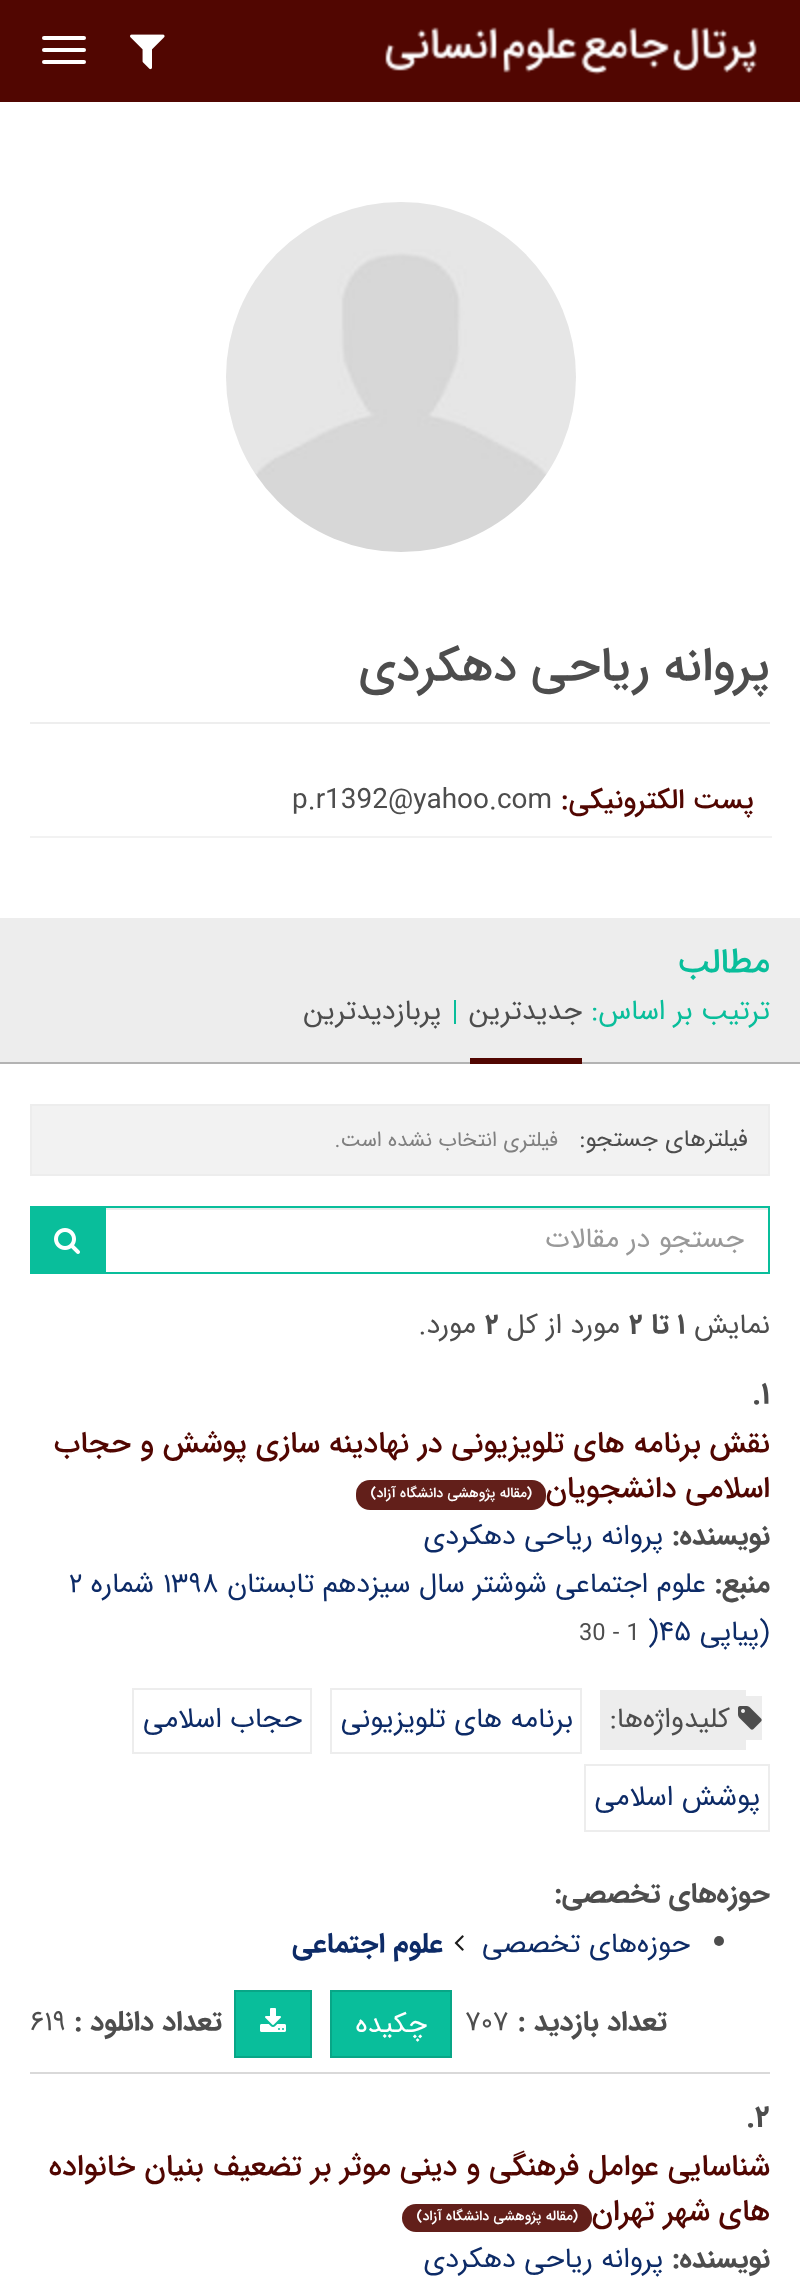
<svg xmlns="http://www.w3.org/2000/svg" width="800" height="2281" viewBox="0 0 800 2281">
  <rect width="100%" height="100%" fill="#fff"/>
  <path d="M0 0h800v102H0z" fill="#510601"/>
  <image x="385" y="27" width="372" height="48" href="img/1.png"/>
  <image x="130" y="34" width="35" height="36" href="img/2.png"/>
  <rect x="42" y="36" width="44" height="4" rx="2" fill="#fff"/>
  <rect x="42" y="48" width="44" height="4" rx="2" fill="#fff"/>
  <rect x="42" y="60" width="44" height="4" rx="2" fill="#fff"/>
  <image x="226" y="202" width="350" height="350" href="img/3.png"/>
  <path d="M30 722h740v2H30z" fill="#eee"/>
  <path d="M30 836h742v2H30z" fill="#f2f2f2"/>
  <path d="M0 918h800v144H0z" fill="#ededed"/>
  <path d="M0 1062h800v2H0z" fill="#b3b3b3"/>
  <path d="M470 1058h112v6H470z" fill="#510601"/>
  <path d="M454 1000h2v24H454z" fill="#09be9b"/>
  <path d="M31 1105h738v70H31z" fill="#f2f2f2" stroke="#ededed" stroke-width="2"/>
  <path d="M106 1208h662v2H106z" fill="#ececec"/>
  <path d="M105 1207h664v66H105z" fill="none" stroke="#09be9b" stroke-width="2"/>
  <path d="M31 1207h72v66H31z" fill="none" stroke="#09be9b" stroke-width="2"/>
  <path d="M32 1208h70v64H32z" fill="#09be9b"/>
  <image x="54" y="1228" width="26" height="26" href="img/4.png"/>
  <path d="M30 2072h740v2H30z" fill="#d9d9d9"/>
  <rect x="356" y="1480" width="190" height="30" rx="14" fill="#621f1a"/>
  <path d="M746 1696h16v44H746z" fill="#ededed"/>
  <path d="M600 1690h146v60H600z" fill="#ededed"/>
  <image x="738" y="1706" width="24" height="24" href="img/5.png"/>
  <path d="M331 1689h250v64H331z" fill="none" stroke="#ededed" stroke-width="2"/>
  <path d="M133 1689h178v64H133z" fill="none" stroke="#ededed" stroke-width="2"/>
  <path d="M585 1765h184v66H585z" fill="none" stroke="#ededed" stroke-width="2"/>
  <circle cx="719" cy="1941" r="5" fill="#4d4d4d"/>
  <image x="454" y="1935" width="10" height="16" href="img/6.png"/>
  <path d="M331 1991h120v66H331z" fill="#09be9b" stroke="#08a687" stroke-width="2"/>
  <path d="M235 1991h76v66H235z" fill="#09be9b" stroke="#08a687" stroke-width="2"/>
  <image x="260" y="2008" width="26" height="24" href="img/7.png"/>
  <rect x="402" y="2204" width="190" height="28" rx="14" fill="#621f1a"/>
  <text x="770" y="680" font-family="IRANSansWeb" font-size="48" font-weight="500" direction="rtl" fill="#4d4d4d">پروانه ریاحی دهکردی</text>
  <text x="754" y="808" font-family="IRANSansWeb" font-size="28" font-weight="500" direction="rtl" fill="#510601">پست الکترونیکی:</text>
  <text x="292" y="808" font-family="IRANSansWeb" font-size="28" fill="#4d4d4d">p.r1392@yahoo.com</text>
  <text x="770" y="972" font-family="IRANSansWeb" font-size="34" font-weight="500" direction="rtl" fill="#09be9b">مطالب</text>
  <text x="770" y="1019" font-family="IRANSansWeb" font-size="28" direction="rtl" fill="#09be9b">ترتیب بر اساس:</text>
  <g font-family="IRANSansWeb" font-size="28" direction="rtl" fill="#4d4d4d">
    <text x="582" y="1019">جدیدترین</text>
    <text x="441" y="1019">پربازدیدترین</text>
  </g>
  <text x="748" y="1146" font-family="IRANSansWeb" font-size="23.75" direction="rtl" fill="#4d4d4d">فیلترهای جستجو:</text>
  <text x="558" y="1146" font-family="IRANSansWeb" font-size="21" direction="rtl" fill="#808080">فیلتری انتخاب نشده است.</text>
  <text x="744" y="1247" font-family="IRANSansWeb" font-size="28" direction="rtl" fill="#999">جستجو در مقالات</text>
  <text x="770" y="1333" font-family="IRANSansWeb" font-size="28" direction="rtl" fill="#4d4d4d">نمایش</text>
  <text x="677" y="1333" font-family="IRANSansWeb" font-size="28" font-weight="bold" fill="#4d4d4d">۱</text>
  <text x="669" y="1333" font-family="IRANSansWeb" font-size="28" font-weight="bold" direction="rtl" fill="#4d4d4d">تا</text>
  <text x="629" y="1333" font-family="IRANSansWeb" font-size="28" font-weight="bold" fill="#4d4d4d">۲</text>
  <text x="620" y="1333" font-family="IRANSansWeb" font-size="28" direction="rtl" fill="#4d4d4d">مورد از کل</text>
  <text x="485" y="1333" font-family="IRANSansWeb" font-size="28" font-weight="bold" fill="#4d4d4d">۲</text>
  <text x="476" y="1333" font-family="IRANSansWeb" font-size="28" direction="rtl" fill="#4d4d4d">مورد.</text>
  <text x="752" y="1403" font-family="IRANSansWeb" font-size="30" font-weight="bold" fill="#4d4d4d">.۱</text>
  <g font-family="IRANSansWeb" font-size="30" font-weight="500" direction="rtl" fill="#510601">
    <text x="770" y="1452">نقش برنامه های تلویزیونی در نهادینه سازی پوشش و حجاب</text>
    <text x="770" y="1497">اسلامی دانشجویان</text>
  </g>
  <text x="532" y="1497" font-family="IRANSansWeb" font-size="14.1" font-weight="500" direction="rtl" fill="#fff">(مقاله پژوهشی دانشگاه آزاد)</text>
  <text x="770" y="1544" font-family="IRANSansWeb" font-size="28" font-weight="bold" direction="rtl" fill="#4d4d4d">نویسنده:</text>
  <text x="663" y="1544" font-family="IRANSansWeb" font-size="28" direction="rtl" fill="#0d2b67">پروانه ریاحی دهکردی</text>
  <text x="770" y="1592" font-family="IRANSansWeb" font-size="28" font-weight="bold" direction="rtl" fill="#4d4d4d">منبع:</text>
  <text x="706" y="1592" font-family="IRANSansWeb" font-size="28" direction="rtl" fill="#0d2b67">علوم اجتماعی شوشتر سال سیزدهم تابستان</text>
  <text x="163" y="1592" font-family="IRANSansWeb" font-size="28" fill="#0d2b67">۱۳۹۸</text>
  <text x="154" y="1592" font-family="IRANSansWeb" font-size="28" direction="rtl" fill="#0d2b67">شماره</text>
  <text x="69" y="1592" font-family="IRANSansWeb" font-size="28" fill="#0d2b67">۲</text>
  <text x="770" y="1640" font-family="IRANSansWeb" font-size="28" direction="rtl" fill="#0d2b67">(پیاپی</text>
  <text x="648" y="1640" font-family="IRANSansWeb" font-size="28" fill="#0d2b67">)۴۵</text>
  <text x="579" y="1640" font-family="IRANSansWeb" font-size="23.75" fill="#4d4d4d">30 - 1</text>
  <text x="730" y="1727" font-family="IRANSansWeb" font-size="28" direction="rtl" fill="#4d4d4d">کلیدواژه‌ها:</text>
  <g font-family="IRANSansWeb" font-size="28" direction="rtl" fill="#0d2b67">
    <text x="573" y="1727">برنامه های تلویزیونی</text>
    <text x="302" y="1727">حجاب اسلامی</text>
    <text x="760" y="1805">پوشش اسلامی</text>
  </g>
  <text x="770" y="1902" font-family="IRANSansWeb" font-size="28" font-weight="bold" direction="rtl" fill="#4d4d4d">حوزه‌های تخصصی:</text>
  <text x="690" y="1952" font-family="IRANSansWeb" font-size="28" direction="rtl" fill="#0d2b67">حوزه‌های تخصصی</text>
  <text x="443" y="1952" font-family="IRANSansWeb" font-size="28" font-weight="bold" direction="rtl" fill="#0d2b67">علوم اجتماعی</text>
  <text x="667" y="2030" font-family="IRANSansWeb" font-size="28" font-weight="bold" direction="rtl" fill="#4d4d4d">تعداد بازدید :</text>
  <text x="465" y="2030" font-family="IRANSansWeb" font-size="28" fill="#4d4d4d">۷۰۷</text>
  <text x="427" y="2032" font-family="IRANSansWeb" font-size="28" direction="rtl" fill="#fff">چکیده</text>
  <text x="222" y="2030" font-family="IRANSansWeb" font-size="28" font-weight="bold" direction="rtl" fill="#4d4d4d">تعداد دانلود :</text>
  <text x="30" y="2030" font-family="IRANSansWeb" font-size="28" fill="#4d4d4d">۶۱۹</text>
  <text x="746" y="2126" font-family="IRANSansWeb" font-size="30" font-weight="bold" fill="#4d4d4d">.۲</text>
  <g font-family="IRANSansWeb" font-size="30" font-weight="500" direction="rtl" fill="#510601">
    <text x="770" y="2175">شناسایی عوامل فرهنگی و دینی موثر بر تضعیف بنیان خانواده</text>
    <text x="770" y="2220">های شهر تهران</text>
  </g>
  <text x="578" y="2220" font-family="IRANSansWeb" font-size="14.1" font-weight="500" direction="rtl" fill="#fff">(مقاله پژوهشی دانشگاه آزاد)</text>
  <text x="770" y="2267" font-family="IRANSansWeb" font-size="28" font-weight="bold" direction="rtl" fill="#4d4d4d">نویسنده:</text>
  <text x="663" y="2267" font-family="IRANSansWeb" font-size="28" direction="rtl" fill="#0d2b67">پروانه ریاحی دهکردی</text>
</svg>
